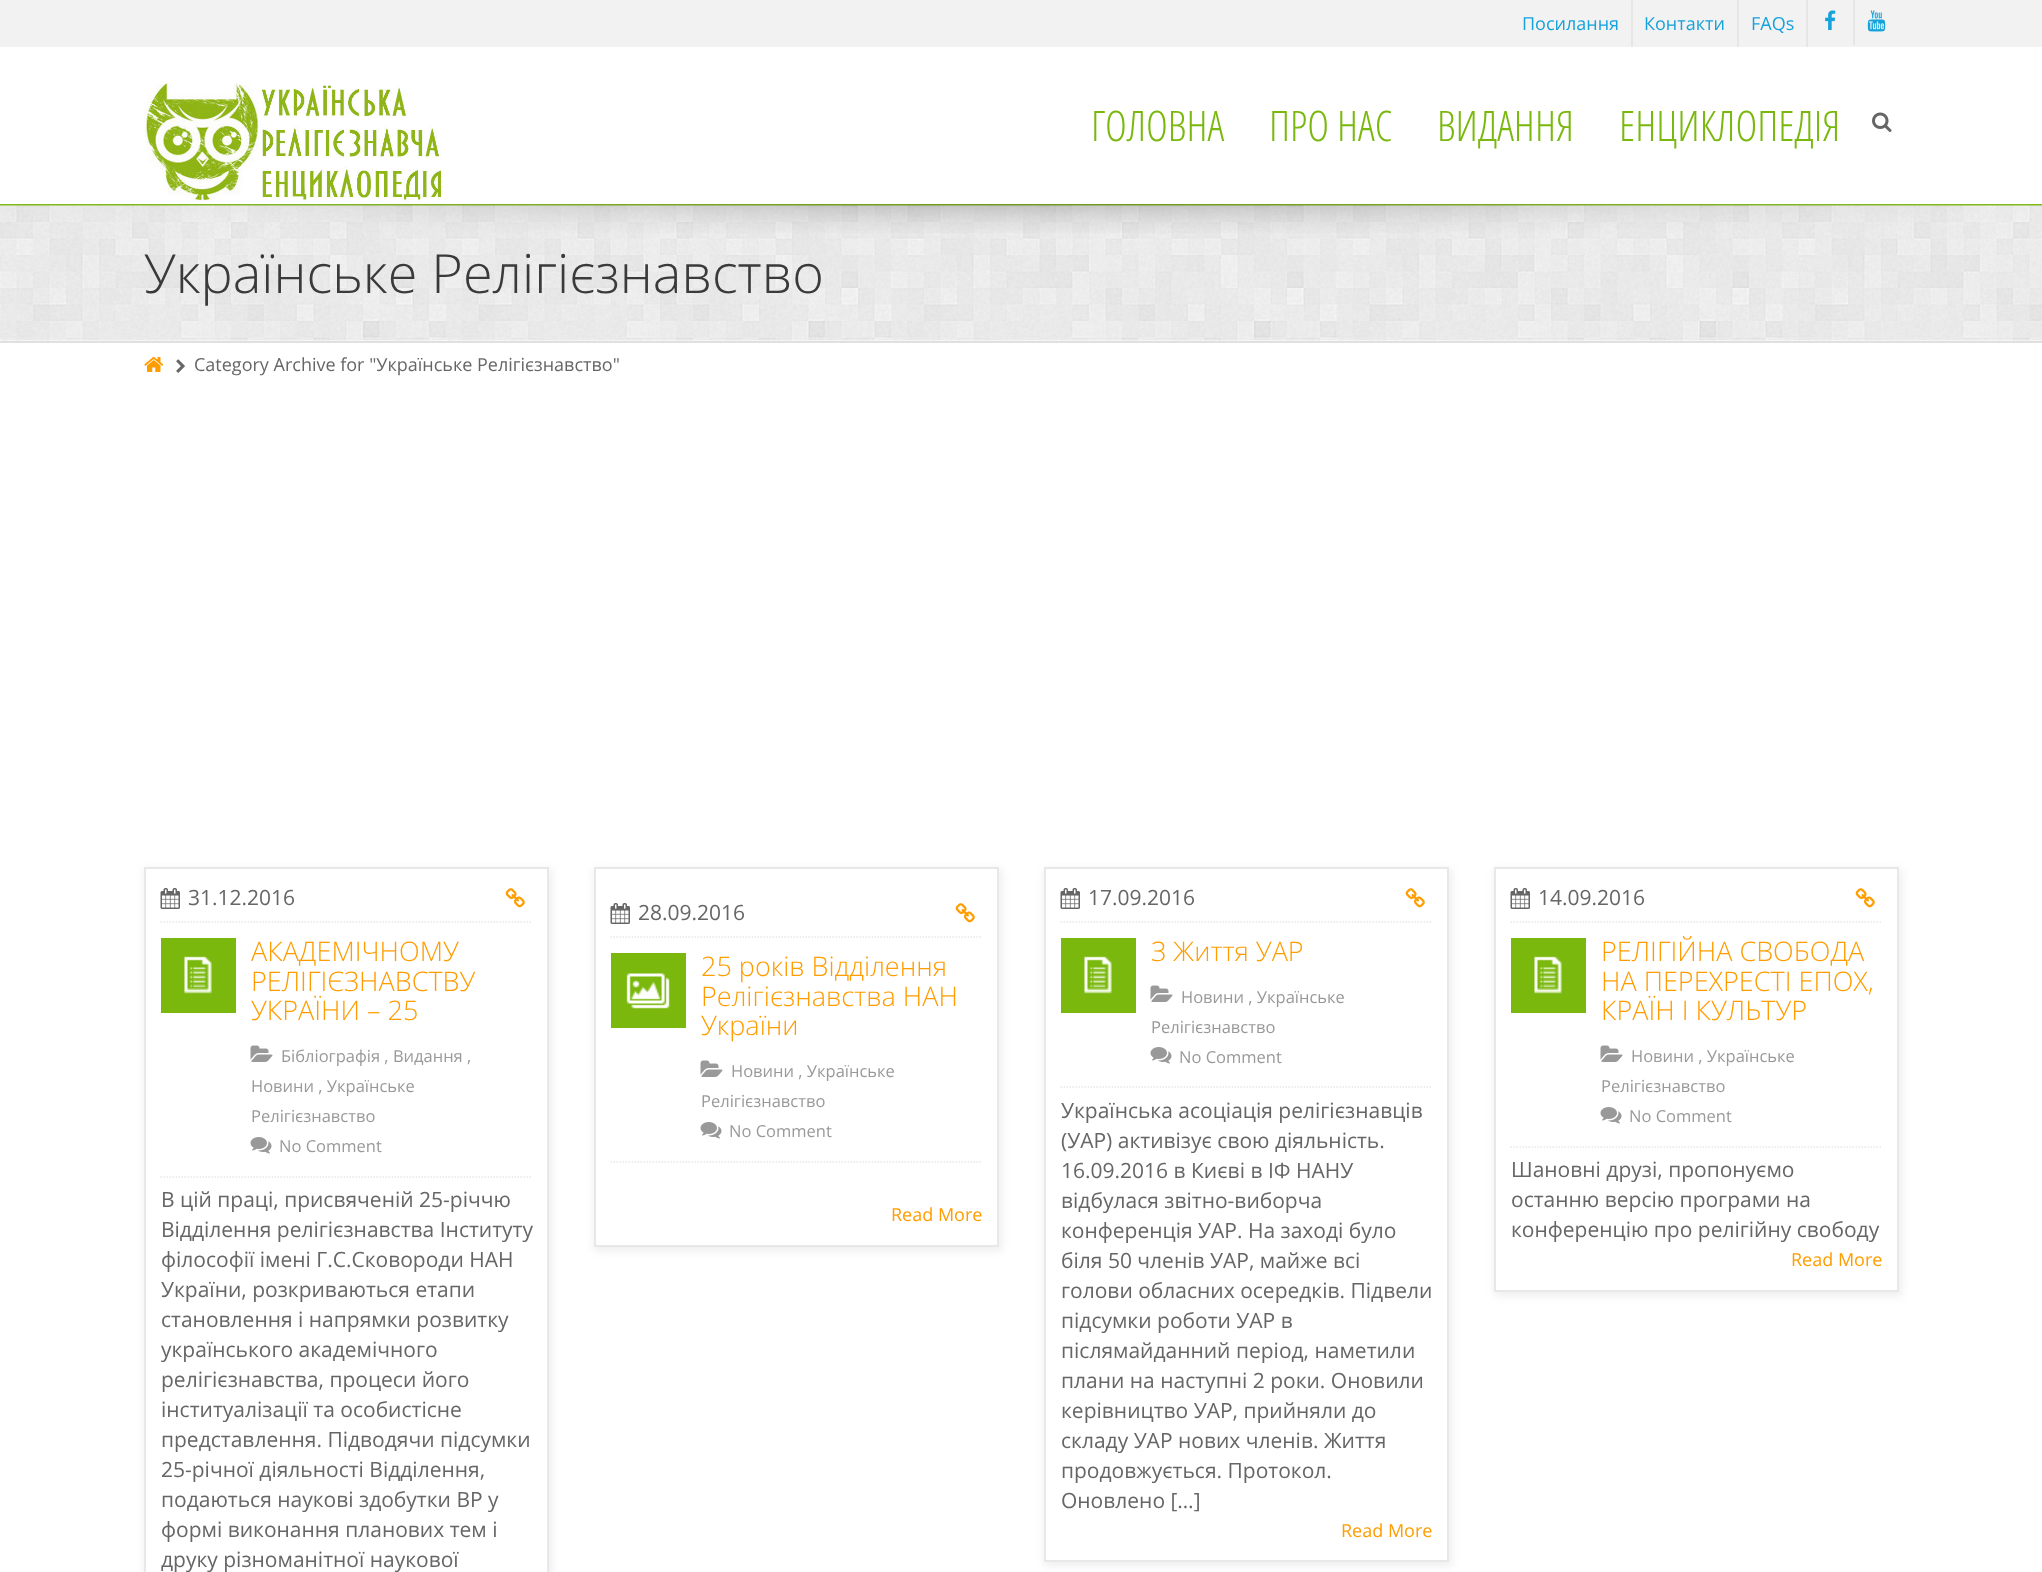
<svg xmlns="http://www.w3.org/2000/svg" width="2042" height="1572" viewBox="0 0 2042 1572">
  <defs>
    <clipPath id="clip1"><path d="M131 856H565V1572H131ZM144 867H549V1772H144Z" clip-rule="evenodd"/></clipPath>
    <clipPath id="clip2"><path d="M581 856H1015V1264H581ZM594 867H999V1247H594Z" clip-rule="evenodd"/></clipPath>
    <clipPath id="clip3"><path d="M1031 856H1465V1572H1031ZM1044 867H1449V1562H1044Z" clip-rule="evenodd"/></clipPath>
    <clipPath id="clip4"><path d="M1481 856H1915V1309H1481ZM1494 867H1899V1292H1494Z" clip-rule="evenodd"/></clipPath>
  </defs>
  <rect width="100%" height="100%" fill="#fff"/>
  <path d="M0 0h2042v47H0z" fill="#f2f2f2"/>
  <path d="M1631 0h2v47H1631z" fill="#e6e6e6"/>
  <path d="M1737 0h2v47H1737z" fill="#e6e6e6"/>
  <path d="M1806 0h2v47H1806z" fill="#e6e6e6"/>
  <path d="M1853 0h2v45H1853z" fill="#e6e6e6"/>
  <image x="1825" y="10" width="11" height="20" href="img/1.png"/>
  <image x="1867" y="10" width="19" height="22" href="img/2.png"/>
  <path d="M0 204h2042v2H0z" fill="#7ab80e"/>
  <image x="144" y="81" width="297" height="122" href="img/3.png"/>
  <image x="1872" y="112" width="20" height="20" href="img/4.png"/>
  <image x="0" y="205" width="2042" height="136" href="img/5.png"/>
  <image x="0" y="204" width="2042" height="29" href="img/6.png"/>
  <path d="M0 341h2042v2H0z" fill="#e0e0e0"/>
  <image x="144" y="357" width="20" height="15" href="img/7.png"/>
  <image x="176" y="359" width="9" height="14" href="img/8.png"/>
  <g clip-path="url(#clip1)">
    <path d="M144 869h408v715H144z" fill="#eee" filter="blur(4px)"/>
  </g>
  <path d="M145 868h403v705H145z" fill="none" stroke="#e8e8e8" stroke-width="2"/>
  <image x="160" y="888" width="20" height="21" href="img/9.png"/>
  <image x="505" y="888" width="20" height="20" href="img/10.png"/>
  <path d="M160.5 922H532.5" fill="none" stroke="#e8e8e8" stroke-width="1.5" stroke-dasharray="1.5 1.5"/>
  <path d="M160.5 1177H532.5" fill="none" stroke="#e8e8e8" stroke-width="1.5" stroke-dasharray="1.5 1.5"/>
  <path d="M161 938h75v75H161z" fill="#7ab80e"/>
  <image x="184" y="956" width="28" height="38" href="img/11.png"/>
  <image x="250" y="1045" width="23" height="17" href="img/12.png"/>
  <image x="250" y="1137" width="22" height="17" href="img/13.png"/>
  <g clip-path="url(#clip2)">
    <path d="M594 869h408v382H594z" fill="#eee" filter="blur(4px)"/>
  </g>
  <path d="M595 868h403v378H595z" fill="none" stroke="#e8e8e8" stroke-width="2"/>
  <image x="610" y="903" width="20" height="21" href="img/9.png"/>
  <image x="955" y="903" width="20" height="20" href="img/10.png"/>
  <path d="M610.5 937H982.5" fill="none" stroke="#e8e8e8" stroke-width="1.5" stroke-dasharray="1.5 1.5"/>
  <path d="M610.5 1162H982.5" fill="none" stroke="#e8e8e8" stroke-width="1.5" stroke-dasharray="1.5 1.5"/>
  <path d="M611 953h75v75H611z" fill="#7ab80e"/>
  <image x="626" y="973" width="44" height="36" href="img/14.png"/>
  <image x="700" y="1060" width="23" height="17" href="img/12.png"/>
  <image x="700" y="1122" width="22" height="17" href="img/13.png"/>
  <g clip-path="url(#clip3)">
    <path d="M1044 869h408v697H1044z" fill="#eee" filter="blur(4px)"/>
  </g>
  <path d="M1045 868h403v693H1045z" fill="none" stroke="#e8e8e8" stroke-width="2"/>
  <image x="1060" y="888" width="20" height="21" href="img/9.png"/>
  <image x="1405" y="888" width="20" height="20" href="img/10.png"/>
  <path d="M1060.5 922H1432.5" fill="none" stroke="#e8e8e8" stroke-width="1.5" stroke-dasharray="1.5 1.5"/>
  <path d="M1060.5 1087H1432.5" fill="none" stroke="#e8e8e8" stroke-width="1.5" stroke-dasharray="1.5 1.5"/>
  <path d="M1061 938h75v75H1061z" fill="#7ab80e"/>
  <image x="1084" y="956" width="28" height="38" href="img/11.png"/>
  <image x="1150" y="985" width="23" height="17" href="img/12.png"/>
  <image x="1150" y="1047" width="22" height="17" href="img/13.png"/>
  <g clip-path="url(#clip4)">
    <path d="M1494 869h408v427H1494z" fill="#eee" filter="blur(4px)"/>
  </g>
  <path d="M1495 868h403v423H1495z" fill="none" stroke="#e8e8e8" stroke-width="2"/>
  <image x="1510" y="888" width="20" height="21" href="img/9.png"/>
  <image x="1855" y="888" width="20" height="20" href="img/10.png"/>
  <path d="M1510.5 922H1882.5" fill="none" stroke="#e8e8e8" stroke-width="1.5" stroke-dasharray="1.5 1.5"/>
  <path d="M1510.5 1147H1882.5" fill="none" stroke="#e8e8e8" stroke-width="1.5" stroke-dasharray="1.5 1.5"/>
  <path d="M1511 938h75v75H1511z" fill="#7ab80e"/>
  <image x="1534" y="956" width="28" height="38" href="img/11.png"/>
  <image x="1600" y="1045" width="23" height="17" href="img/12.png"/>
  <image x="1600" y="1107" width="22" height="17" href="img/13.png"/>
  <g font-family="Open Sans" font-size="18" fill="#16a2da">
    <text x="1522" y="30">Посилання</text>
    <text x="1644" y="30">Контакти</text>
    <text x="1751" y="30">FAQs</text>
  </g>
  <g font-family="Open Sans Condensed" font-size="42" font-weight="300" fill="#7ab80e">
    <text x="1091" y="141">ГОЛОВНА</text>
    <text x="1269" y="141">ПРО НАС</text>
    <text x="1437" y="141">ВИДАННЯ</text>
    <text x="1619" y="141">ЕНЦИКЛОПЕДІЯ</text>
  </g>
  <text x="144" y="293" font-family="Open Sans" font-size="54" font-weight="300" fill="#3a3a3a">Українське Релігієзнавство</text>
  <text x="194" y="371" font-family="Open Sans" font-size="18" fill="#666">Category Archive for "Українське Релігієзнавство"</text>
  <text x="188" y="905" font-family="Open Sans" font-size="21" fill="#666">31.12.2016</text>
  <g font-family="Open Sans" font-size="27" font-weight="300" fill="#ff9d00">
    <text x="251" y="961">АКАДЕМІЧНОМУ</text>
    <text x="251" y="991">РЕЛІГІЄЗНАВСТВУ</text>
    <text x="251" y="1020">УКРАЇНИ – 25</text>
  </g>
  <g font-family="Open Sans" font-size="16.5" fill="#999">
    <text x="281" y="1062">Бібліографія , Видання ,</text>
    <text x="251" y="1092">Новини , Українське</text>
    <text x="251" y="1122">Релігієзнавство</text>
    <text x="279" y="1152">No Comment</text>
  </g>
  <g font-family="Open Sans" font-size="21" fill="#666">
    <text x="161" y="1207">В цій праці, присвяченій 25-річчю</text>
    <text x="161" y="1237">Відділення релігієзнавства Інституту</text>
    <text x="161" y="1267">філософії імені Г.С.Сковороди НАН</text>
    <text x="161" y="1297">України, розкриваються етапи</text>
    <text x="161" y="1327">становлення і напрямки розвитку</text>
    <text x="161" y="1357">українського академічного</text>
    <text x="161" y="1387">релігієзнавства, процеси його</text>
    <text x="161" y="1417">інституалізації та особистісне</text>
    <text x="161" y="1447">представлення. Підводячи підсумки</text>
    <text x="161" y="1477">25-річної діяльності Відділення,</text>
    <text x="161" y="1507">подаються наукові здобутки ВР у</text>
    <text x="161" y="1537">формі виконання планових тем і</text>
    <text x="161" y="1567">друку різноманітної наукової</text>
    <text x="638" y="920">28.09.2016</text>
  </g>
  <g font-family="Open Sans" font-size="27" font-weight="300" fill="#ff9d00">
    <text x="701" y="976">25 років Відділення</text>
    <text x="701" y="1006">Релігієзнавства НАН</text>
    <text x="701" y="1035">України</text>
  </g>
  <g font-family="Open Sans" font-size="16.5" fill="#999">
    <text x="731" y="1077">Новини , Українське</text>
    <text x="701" y="1107">Релігієзнавство</text>
    <text x="729" y="1137">No Comment</text>
  </g>
  <text x="891" y="1221" font-family="Open Sans" font-size="18" fill="#ff9d00">Read More</text>
  <text x="1088" y="905" font-family="Open Sans" font-size="21" fill="#666">17.09.2016</text>
  <text x="1151" y="961" font-family="Open Sans" font-size="27" font-weight="300" fill="#ff9d00">З Життя УАР</text>
  <g font-family="Open Sans" font-size="16.5" fill="#999">
    <text x="1181" y="1003">Новини , Українське</text>
    <text x="1151" y="1033">Релігієзнавство</text>
    <text x="1179" y="1063">No Comment</text>
  </g>
  <g font-family="Open Sans" font-size="21" fill="#666">
    <text x="1061" y="1118">Українська асоціація релігієзнавців</text>
    <text x="1061" y="1148">(УАР) активізує свою діяльність.</text>
    <text x="1061" y="1178">16.09.2016 в Києві в ІФ НАНУ</text>
    <text x="1061" y="1208">відбулася звітно-виборча</text>
    <text x="1061" y="1238">конференція УАР. На заході було</text>
    <text x="1061" y="1268">біля 50 членів УАР, майже всі</text>
    <text x="1061" y="1298">голови обласних осередків. Підвели</text>
    <text x="1061" y="1328">підсумки роботи УАР в</text>
    <text x="1061" y="1358">післямайданний період, наметили</text>
    <text x="1061" y="1388">плани на наступні 2 роки. Оновили</text>
    <text x="1061" y="1418">керівництво УАР, прийняли до</text>
    <text x="1061" y="1448">складу УАР нових членів. Життя</text>
    <text x="1061" y="1478">продовжується. Протокол.</text>
    <text x="1061" y="1508">Оновлено […]</text>
  </g>
  <text x="1341" y="1537" font-family="Open Sans" font-size="18" fill="#ff9d00">Read More</text>
  <text x="1538" y="905" font-family="Open Sans" font-size="21" fill="#666">14.09.2016</text>
  <g font-family="Open Sans" font-size="27" font-weight="300" fill="#ff9d00">
    <text x="1601" y="961">РЕЛІГІЙНА СВОБОДА</text>
    <text x="1601" y="991">НА ПЕРЕХРЕСТІ ЕПОХ,</text>
    <text x="1601" y="1020">КРАЇН І КУЛЬТУР</text>
  </g>
  <g font-family="Open Sans" font-size="16.5" fill="#999">
    <text x="1631" y="1062">Новини , Українське</text>
    <text x="1601" y="1092">Релігієзнавство</text>
    <text x="1629" y="1122">No Comment</text>
  </g>
  <g font-family="Open Sans" font-size="21" fill="#666">
    <text x="1511" y="1177">Шановні друзі, пропонуємо</text>
    <text x="1511" y="1207">останню версію програми на</text>
    <text x="1511" y="1237">конференцію про релігійну свободу</text>
  </g>
  <text x="1791" y="1266" font-family="Open Sans" font-size="18" fill="#ff9d00">Read More</text>
</svg>
